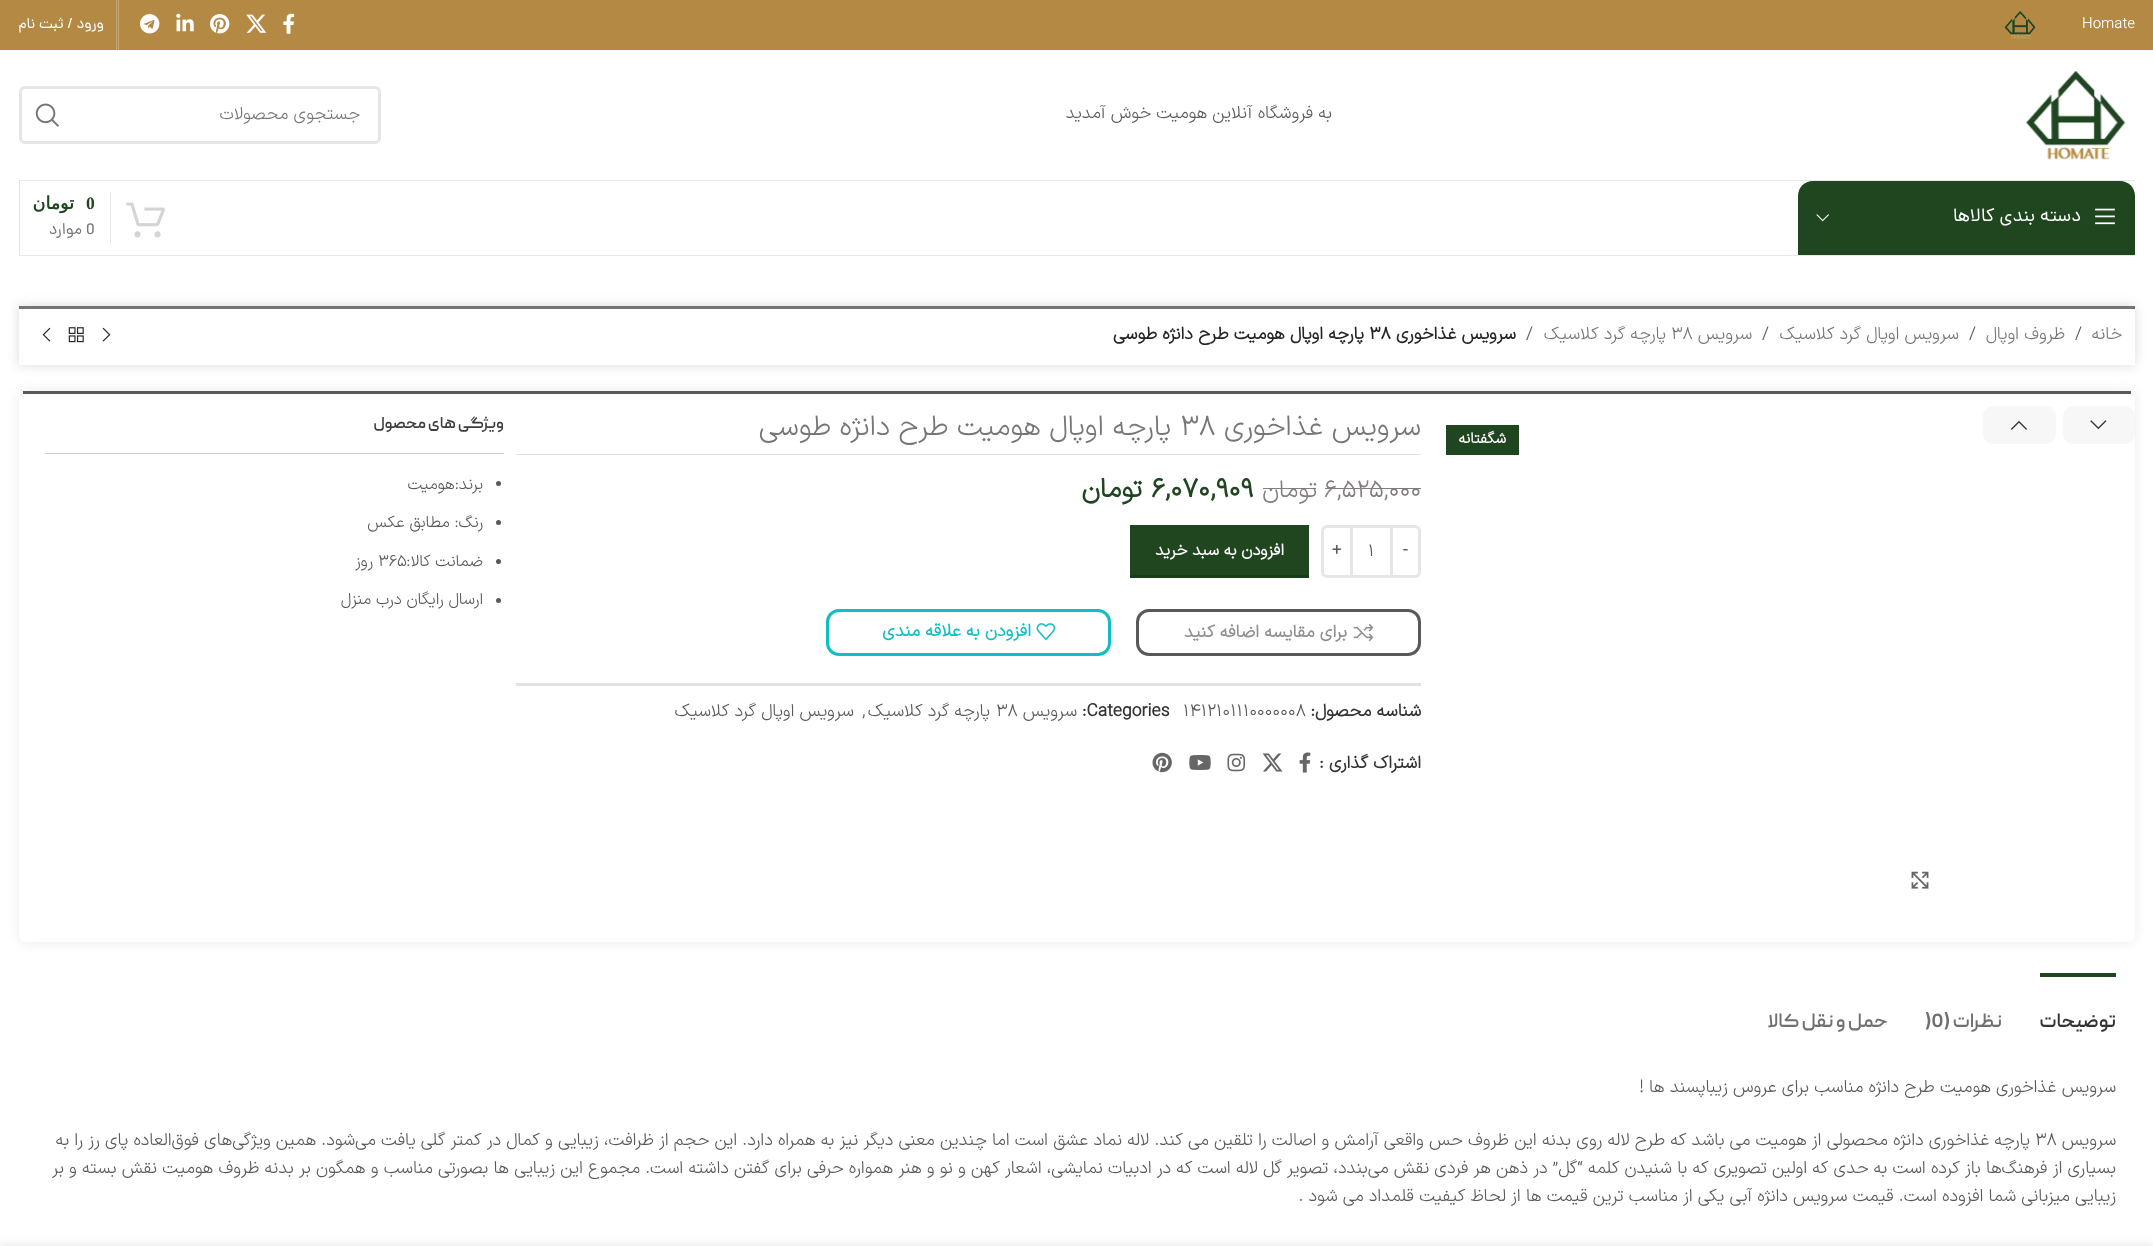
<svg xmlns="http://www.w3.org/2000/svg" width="2153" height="1246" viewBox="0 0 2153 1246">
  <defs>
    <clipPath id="clip1"><path d="M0 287H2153V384H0ZM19 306H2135V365H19Z" clip-rule="evenodd"/></clipPath>
  </defs>
  <rect width="100%" height="100%" fill="#fff"/>
  <path d="M0 0h2153v50H0z" fill="#b38943"/>
  <image x="2004" y="11" width="32" height="28" href="img/1.png"/>
  <image x="283" y="13" width="12" height="21" href="img/2.png"/>
  <image x="246" y="14" width="21" height="19" href="img/3.png"/>
  <image x="210" y="14" width="20" height="20" href="img/4.png"/>
  <image x="176" y="13" width="18" height="19" href="img/5.png"/>
  <image x="140" y="14" width="20" height="20" href="img/6.png"/>
  <path d="M118 0h1v50H118z" fill="#c6a772"/>
  <path d="M116 0h1v50H116z" fill="#c6a772"/>
  <path d="M19 180h2116v1H19z" fill="#e8e8e8"/>
  <image x="2026" y="71" width="100" height="89" href="img/7.png"/>
  <rect x="20.5" y="87.5" width="359" height="55" rx="4.5" fill="none" stroke="#e6e6e6" stroke-width="3"/>
  <image x="35" y="103" width="24" height="24" href="img/8.png"/>
  <path d="M19 255h2116v1H19z" fill="#e8e8e8"/>
  <path d="M1813 181H2120C2128.5 181 2135 187.5 2135 196V255H1798V196C1798 187.5 1804.5 181 1813 181Z" fill="#204620"/>
  <image x="2095" y="208" width="20" height="17" href="img/9.png"/>
  <image x="1816" y="214" width="13" height="8" href="img/10.png"/>
  <image x="126" y="202" width="39" height="36" href="img/11.png"/>
  <path d="M110 193h1v52H110z" fill="#e6e6e6"/>
  <path d="M19 181h1v74H19z" fill="#e4e4e4"/>
  <g clip-path="url(#clip1)">
    <path d="M19 306h2116v59H19z" fill="#bcb5b580" filter="blur(6px)"/>
  </g>
  <path d="M19 306h2116v3H19z" fill="#757672"/>
  <image x="102" y="327" width="9" height="15" href="img/12.png"/>
  <image x="68" y="327" width="16" height="16" href="img/13.png"/>
  <image x="42" y="327" width="9" height="15" href="img/14.png"/>
  <rect x="19" y="391" width="2116" height="552" rx="8" fill="#d7d7d780" filter="blur(6px)"/>
  <path d="M26 394H2128C2132 394 2135 396 2135 399V935C2135 939 2132 942 2128 942H26C22 942 19 939 19 935V399C19 396 22 394 26 394Z" fill="#fff"/>
  <path d="M23 391h2108v3H23z" fill="#595959"/>
  <rect x="2063" y="406" width="72" height="38" rx="10" fill="#f7f7f7"/>
  <image x="2090" y="420" width="17" height="10" href="img/15.png"/>
  <rect x="1983" y="406" width="73" height="38" rx="10" fill="#f7f7f7"/>
  <image x="2010" y="420" width="17" height="10" href="img/16.png"/>
  <path d="M1446 425h73v30H1446z" fill="#204620"/>
  <image x="1911" y="871" width="18" height="18" href="img/17.png"/>
  <path d="M516 454h905v1H516z" fill="#e2e2e2"/>
  <path d="M1325 488h96v1H1325z" fill="#847d7d"/>
  <path d="M1263 488h53v1H1263z" fill="#847d7d"/>
  <path d="M1391.5 526.5H1415C1417.5 526.5 1419.5 528.5 1419.5 531V572C1419.5 574.5 1417.5 576.5 1415 576.5H1391.5Z" fill="none" stroke="#e6e6e6" stroke-width="3"/>
  <path d="M1353 525h37v3H1353z" fill="#e6e6e6"/>
  <path d="M1353 575h37v3H1353z" fill="#e6e6e6"/>
  <path d="M1327 526.5H1351.5V576.5H1327C1324.5 576.5 1322.5 574.5 1322.5 572V531C1322.5 528.5 1324.5 526.5 1327 526.5Z" fill="none" stroke="#e6e6e6" stroke-width="3"/>
  <path d="M1130 525h179v50H1130z" fill="#204620"/>
  <path d="M1130 575h179v3H1130z" fill="#1b3c1b"/>
  <rect x="1137.5" y="610.5" width="282" height="44" rx="11.5" fill="none" stroke="#595959" stroke-width="3"/>
  <image x="1353" y="623" width="21" height="19" href="img/18.png"/>
  <rect x="827.5" y="610.5" width="282" height="44" rx="11.5" fill="none" stroke="#11bec4" stroke-width="3"/>
  <image x="1036" y="623" width="20" height="17" href="img/19.png"/>
  <path d="M516 683h905v3H516z" fill="#e2e2e2"/>
  <image x="1299" y="752" width="12" height="21" href="img/20.png"/>
  <image x="1262" y="753" width="21" height="19" href="img/21.png"/>
  <image x="1227" y="753" width="18" height="19" href="img/22.png"/>
  <image x="1189" y="755" width="22" height="15" href="img/23.png"/>
  <image x="1152" y="752" width="20" height="21" href="img/24.png"/>
  <path d="M45 453h459v1H45z" fill="#d3cece"/>
  <circle cx="498.5" cy="483.5" r="2.5" fill="#595959"/>
  <circle cx="498.5" cy="522.5" r="2.5" fill="#595959"/>
  <circle cx="498.5" cy="561.5" r="2.5" fill="#595959"/>
  <circle cx="498.5" cy="600.5" r="2.5" fill="#595959"/>
  <path d="M2040 973h76v4H2040z" fill="#204620"/>
  <path d="M0 1246h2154v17H0z" fill="#0000001f" filter="blur(5.5px)"/>
  <text x="2082" y="28" font-family="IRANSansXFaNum" font-size="15" font-weight="300" fill="#fff">Homate</text>
  <text x="104" y="28" font-family="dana" font-size="15" direction="rtl" fill="#fff">ورود / ثبت نام</text>
  <text x="1332" y="118" font-family="IRANSansXFaNum" font-size="17.5" font-weight="300" direction="rtl" fill="#595959">به فروشگاه آنلاین هومیت خوش آمدید</text>
  <text x="360" y="119" font-family="IRANSansXFaNum" font-size="17.5" font-weight="300" direction="rtl" fill="#767676">جستجوی محصولات</text>
  <text x="2081" y="221" font-family="dana" font-size="18.75" direction="rtl" fill="#fff">دسته بندی کالاها</text>
  <text x="86" y="209" font-family="Liberation Serif" font-size="17.5" font-weight="bold" fill="#204620">0</text>
  <text x="74" y="209" font-family="DejaVu Sans" font-size="17.5" font-weight="bold" direction="rtl" fill="#204620">تومان</text>
  <text x="86" y="234" font-family="dana" font-size="16.25" fill="#767676">0</text>
  <text x="82" y="234" font-family="dana" font-size="16.25" direction="rtl" fill="#767676">موارد</text>
  <text x="2122" y="339" font-family="IRANSansXFaNum" font-size="17.5" font-weight="300" direction="rtl" fill="#767676">خانه</text>
  <text x="2075" y="339" font-family="IRANSansXFaNum" font-size="17.5" font-weight="300" fill="#595959">/</text>
  <text x="2065" y="339" font-family="IRANSansXFaNum" font-size="17.5" font-weight="300" direction="rtl" fill="#767676">ظروف اوپال</text>
  <text x="1969" y="339" font-family="IRANSansXFaNum" font-size="17.5" font-weight="300" fill="#595959">/</text>
  <text x="1959" y="339" font-family="IRANSansXFaNum" font-size="17.5" font-weight="300" direction="rtl" fill="#767676">سرویس اوپال گرد کلاسیک</text>
  <text x="1762" y="339" font-family="IRANSansXFaNum" font-size="17.5" font-weight="300" fill="#595959">/</text>
  <text x="1752" y="339" font-family="IRANSansXFaNum" font-size="17.5" font-weight="300" direction="rtl" fill="#767676">سرویس</text>
  <text x="1671" y="339" font-family="IRANSansXFaNum" font-size="17.5" font-weight="300" fill="#767676">38</text>
  <text x="1666" y="339" font-family="IRANSansXFaNum" font-size="17.5" font-weight="300" direction="rtl" fill="#767676">پارچه گرد کلاسیک</text>
  <text x="1526" y="339" font-family="IRANSansXFaNum" font-size="17.5" font-weight="300" fill="#595959">/</text>
  <text x="1516" y="339" font-family="IRANSansXFaNum" font-size="17.5" font-weight="bold" direction="rtl" fill="#242424">سرویس غذاخوری</text>
  <text x="1369" y="339" font-family="IRANSansXFaNum" font-size="17.5" font-weight="bold" fill="#242424">38</text>
  <text x="1364" y="339" font-family="IRANSansXFaNum" font-size="17.5" font-weight="bold" direction="rtl" fill="#242424">پارچه اوپال هومیت طرح دانژه طوسی</text>
  <text x="1506" y="443" font-family="IRANSansXFaNum" font-size="15" font-weight="bold" direction="rtl" fill="#fff">شگفتانه</text>
  <text x="1421" y="435" font-family="IRANSansXFaNum" font-size="28.75" font-weight="300" direction="rtl" fill="#767676">سرویس غذاخوری</text>
  <text x="1180" y="435" font-family="IRANSansXFaNum" font-size="28.75" font-weight="300" fill="#767676">38</text>
  <text x="1171" y="435" font-family="IRANSansXFaNum" font-size="28.75" font-weight="300" direction="rtl" fill="#767676">پارچه اوپال هومیت طرح دانژه طوسی</text>
  <text x="1324" y="497" font-family="IRANSansXFaNum" font-size="24.5" font-weight="300" fill="#847d7d">6,525,000</text>
  <text x="1317" y="497" font-family="IRANSansXFaNum" font-size="24.5" font-weight="300" direction="rtl" fill="#847d7d">تومان</text>
  <text x="1151" y="497" font-family="IRANSansXFaNum" font-size="27" font-weight="bold" fill="#204620">6,070,909</text>
  <text x="1142" y="497" font-family="IRANSansXFaNum" font-size="27" font-weight="bold" direction="rtl" fill="#204620">تومان</text>
  <text x="1403" y="555" font-family="IRANSansXFaNum" font-size="16.25" font-weight="bold" fill="#595959">-</text>
  <text x="1368" y="556" font-family="IRANSansXFaNum" font-size="17.5" font-weight="300" fill="#595959">1</text>
  <text x="1332" y="555" font-family="IRANSansXFaNum" font-size="16.25" font-weight="bold" fill="#595959">+</text>
  <text x="1284" y="555" font-family="IRANSansXFaNum" font-size="16.25" font-weight="bold" direction="rtl" fill="#fff">افزودن به سبد خرید</text>
  <text x="1347" y="637" font-family="IRANSansXFaNum" font-size="17.5" font-weight="bold" direction="rtl" fill="#909090">برای مقایسه اضافه کنید</text>
  <text x="1031" y="636" font-family="IRANSansXFaNum" font-size="17.5" font-weight="bold" direction="rtl" fill="#11bec4">افزودن به علاقه مندی</text>
  <text x="1421" y="716" font-family="IRANSansXFaNum" font-size="17.5" font-weight="bold" direction="rtl" fill="#333">شناسه محصول:</text>
  <text x="1183" y="716" font-family="IRANSansXFaNum" font-size="17.5" font-weight="300" fill="#595959">1412101110000008</text>
  <text x="1082" y="716" font-family="IRANSansXFaNum" font-size="17.5" font-weight="bold" fill="#333">:Categories</text>
  <text x="1077" y="716" font-family="IRANSansXFaNum" font-size="17.5" font-weight="300" direction="rtl" fill="#595959">سرویس</text>
  <text x="996" y="716" font-family="IRANSansXFaNum" font-size="17.5" font-weight="300" fill="#595959">38</text>
  <text x="990" y="716" font-family="IRANSansXFaNum" font-size="17.5" font-weight="300" direction="rtl" fill="#595959">پارچه گرد کلاسیک</text>
  <text x="862" y="716" font-family="IRANSansXFaNum" font-size="17.5" font-weight="300" fill="#595959">,</text>
  <text x="854" y="716" font-family="IRANSansXFaNum" font-size="17.5" font-weight="300" direction="rtl" fill="#595959">سرویس اوپال گرد کلاسیک</text>
  <text x="1421" y="768" font-family="IRANSansXFaNum" font-size="17.5" font-weight="bold" direction="rtl" fill="#333">اشتراک گذاری :</text>
  <text x="504" y="428" font-family="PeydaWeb" font-size="16.25" font-weight="600" direction="rtl" fill="#3d3d3d">ویژگی های محصول</text>
  <g font-family="IRANSansXFaNum" font-size="16.25" font-weight="300" direction="rtl" fill="#595959">
    <text x="483" y="489">برند:هومیت</text>
    <text x="483" y="527">رنگ: مطابق عکس</text>
    <text x="483" y="566">ضمانت کالا:</text>
  </g>
  <text x="378" y="566" font-family="IRANSansXFaNum" font-size="16.25" font-weight="300" fill="#595959">365</text>
  <g font-family="IRANSansXFaNum" font-size="16.25" font-weight="300" direction="rtl" fill="#595959">
    <text x="373" y="566">روز</text>
    <text x="483" y="604">ارسال رایگان درب منزل</text>
  </g>
  <text x="2116" y="1027" font-family="PeydaWeb" font-size="20" font-weight="600" direction="rtl" fill="#333">توضیحات</text>
  <text x="2002" y="1027" font-family="PeydaWeb" font-size="20" font-weight="600" direction="rtl" fill="#707070">نظرات (</text>
  <text x="1925" y="1027" font-family="PeydaWeb" font-size="20" font-weight="600" fill="#707070">)0</text>
  <text x="1888" y="1027" font-family="PeydaWeb" font-size="20" font-weight="600" direction="rtl" fill="#707070">حمل و نقل کالا</text>
  <g font-family="IRANSansXFaNum" font-size="17.5" font-weight="300" direction="rtl" fill="#595959">
    <text x="2116" y="1092">سرویس غذاخوری هومیت طرح دانژه مناسب برای عروس زیباپسند ها !</text>
    <text x="2116" y="1145">سرویس</text>
  </g>
  <text x="2035" y="1145" font-family="IRANSansXFaNum" font-size="17.5" font-weight="300" fill="#595959">38</text>
  <g font-family="IRANSansXFaNum" font-size="17.5" font-weight="300" direction="rtl" fill="#595959">
    <text x="2030" y="1145">پارچه غذاخوری دانژه محصولی از هومیت می باشد که طرح لاله روی بدنه این ظروف حس واقعی آرامش و اصالت را تلقین می کند. لاله نماد عشق است اما چندین معنی دیگر نیز به همراه دارد. این حجم از ظرافت، زیبایی و کمال در کمتر گلی یافت می‌شود. همین ویژگی‌های فوق‌العاده پای رز را به</text>
    <text x="2116" y="1173">بسیاری از فرهنگ‌ها باز کرده است به حدی که اولین تصویری که با شنیدن کلمه “گل” در ذهن هر فردی نقش می‌بندد، تصویر گل لاله است که در ادبیات نمایشی، اشعار کهن و نو و هنر همواره حرفی برای گفتن داشته است. مجموع این زیبایی ها بصورتی مناسب و همگون بر بدنه ظروف هومیت نقش بسته و بر</text>
    <text x="2116" y="1201">زیبایی میزبانی شما افزوده است. قیمت سرویس دانژه آبی یکی از مناسب ترین قیمت ها از لحاظ کیفیت قلمداد می شود .</text>
  </g>
</svg>
